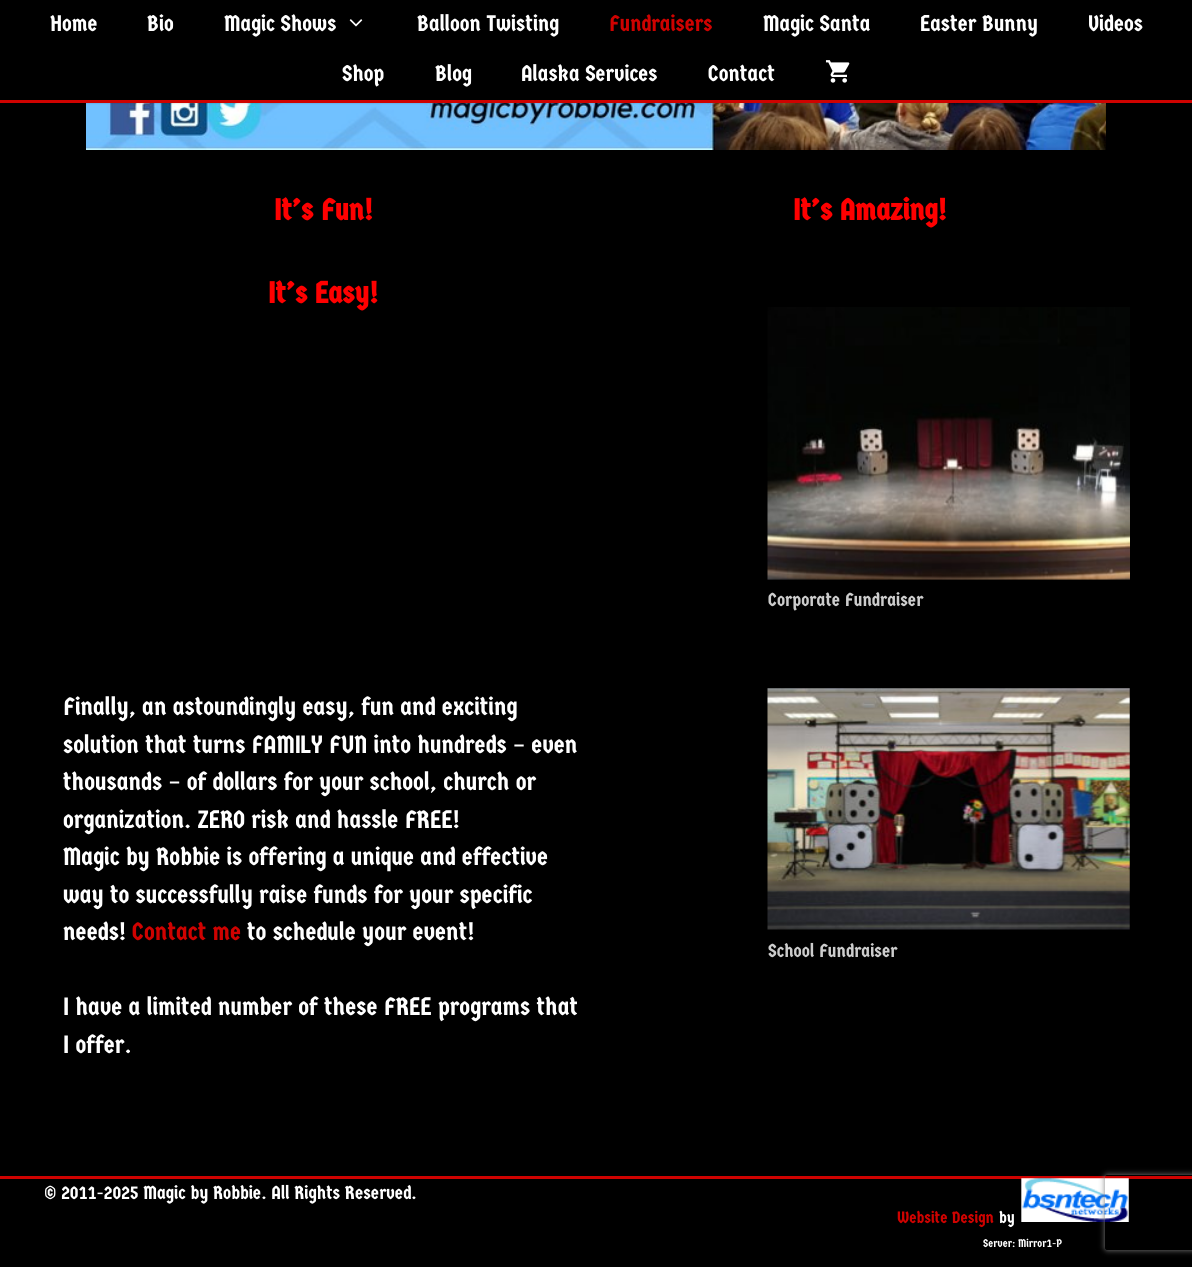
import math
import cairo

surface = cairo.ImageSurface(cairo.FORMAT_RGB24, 1192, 1267)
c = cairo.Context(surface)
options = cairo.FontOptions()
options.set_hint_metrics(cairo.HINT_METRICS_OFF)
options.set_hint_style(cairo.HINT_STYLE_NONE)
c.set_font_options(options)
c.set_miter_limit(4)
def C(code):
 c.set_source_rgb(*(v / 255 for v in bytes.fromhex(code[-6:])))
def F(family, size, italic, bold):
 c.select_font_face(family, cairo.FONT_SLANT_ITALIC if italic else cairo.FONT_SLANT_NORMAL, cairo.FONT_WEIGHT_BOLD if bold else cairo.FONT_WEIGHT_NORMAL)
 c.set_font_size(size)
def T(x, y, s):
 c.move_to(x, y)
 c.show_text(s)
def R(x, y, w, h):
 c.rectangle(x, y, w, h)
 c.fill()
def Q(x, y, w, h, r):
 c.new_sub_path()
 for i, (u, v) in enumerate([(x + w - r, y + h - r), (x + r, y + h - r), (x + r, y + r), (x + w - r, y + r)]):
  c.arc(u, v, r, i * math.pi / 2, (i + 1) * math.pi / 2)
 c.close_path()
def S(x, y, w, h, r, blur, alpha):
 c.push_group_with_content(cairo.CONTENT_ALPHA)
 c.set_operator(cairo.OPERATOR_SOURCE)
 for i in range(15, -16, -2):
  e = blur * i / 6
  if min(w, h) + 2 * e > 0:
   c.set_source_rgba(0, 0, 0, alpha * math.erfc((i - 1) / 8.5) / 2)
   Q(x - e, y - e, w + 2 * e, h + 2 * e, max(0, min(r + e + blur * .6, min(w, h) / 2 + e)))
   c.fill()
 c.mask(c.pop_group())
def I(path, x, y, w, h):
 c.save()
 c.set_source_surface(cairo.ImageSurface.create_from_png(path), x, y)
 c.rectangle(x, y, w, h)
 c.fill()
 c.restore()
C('000000')
c.paint()
I('3.png',86,103,1020,47)
S(3,5,1187,98,0,1,.2)
C('cf0200')
R(0,100,1192,3)
F('Germania One',22.5,0,0)
C('ffffff')
T(50,31,'Home')
T(147,31,'Bio')
T(224,31,'Magic Shows')
I('1.png',349,19,14,8)
T(417,31,'Balloon Twisting')
C('cf0200')
T(609,31,'Fundraisers')
C('ffffff')
T(763,31,'Magic Santa')
T(920,31,'Easter Bunny')
T(1088,31,'Videos')
T(342,81,'Shop')
T(435,81,'Blog')
T(521,81,'Alaska Services')
T(708,81,'Contact')
I('2.png',825,60,25,23)
F('Germania One',30,0,1)
C('ff0000')
T(274,220,'It’s Fun!')
T(793,220,'It’s Amazing!')
T(268,303,'It’s Easy!')
I('4.png',767,307,363,273)
F('Germania One',18.75,0,0)
C('cccccc')
T(768,606,'Corporate Fundraiser')
F('Germania One',25,0,0)
C('ffffff')
T(63,715,'Finally, an astoundingly easy, fun and exciting')
T(63,753,'solution that turns FAMILY FUN into hundreds – even')
T(63,790,'thousands – of dollars for your school, church or')
T(63,828,'organization. ZERO risk and hassle FREE!')
T(63,865,'Magic by Robbie is offering a unique and effective')
T(63,903,'way to successfully raise funds for your specific')
T(63,940,'needs!')
C('cf0200')
T(132,940,'Contact me')
C('ffffff')
T(247,940,'to schedule your event!')
T(63,1015,'I have a limited number of these FREE programs that')
T(63,1053,'I offer.')
I('5.png',767,688,363,242)
F('Germania One',18.75,0,0)
C('cccccc')
T(768,957,'School Fundraiser')
C('cf0200')
R(0,1176,1192,3)
C('ffffff')
T(44,1199,'© 2011-2025 Magic by Robbie. All Rights Reserved.')
F('Germania One',16.5,0,0)
C('cf0200')
T(897,1223,'Website Design')
C('ffffff')
T(999,1223,'by')
I('6.png',1021,1178,108,44)
F('Germania One',11.25,0,0)
T(983,1247,'Server: Mirror1-P')
c.save()
c.set_fill_rule(cairo.FILL_RULE_EVEN_ODD)
c.new_path()
c.move_to(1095,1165)
c.line_to(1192,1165)
c.line_to(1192,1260)
c.line_to(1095,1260)
c.close_path()
c.move_to(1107.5,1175)
c.line_to(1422.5,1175)
c.curve_to(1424,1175,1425,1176,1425,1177.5)
c.line_to(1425,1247.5)
c.curve_to(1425,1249,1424,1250,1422.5,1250)
c.line_to(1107.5,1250)
c.curve_to(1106,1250,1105,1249,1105,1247.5)
c.line_to(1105,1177.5)
c.curve_to(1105,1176,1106,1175,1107.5,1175)
c.close_path()
c.clip()
C('808080')
S(1105,1175,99,75,2.5,3,1)
c.restore()
surface.write_to_png('o.png')
